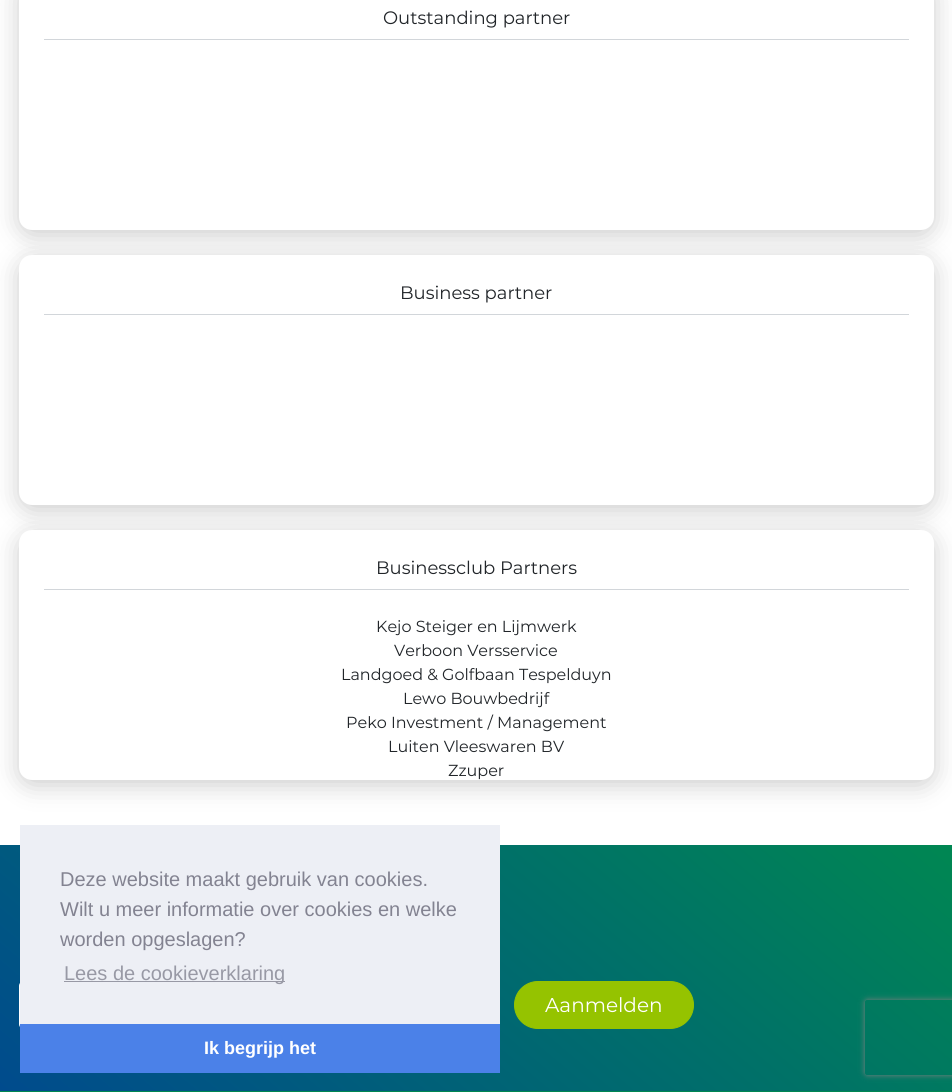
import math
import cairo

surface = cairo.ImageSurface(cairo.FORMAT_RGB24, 952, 1092)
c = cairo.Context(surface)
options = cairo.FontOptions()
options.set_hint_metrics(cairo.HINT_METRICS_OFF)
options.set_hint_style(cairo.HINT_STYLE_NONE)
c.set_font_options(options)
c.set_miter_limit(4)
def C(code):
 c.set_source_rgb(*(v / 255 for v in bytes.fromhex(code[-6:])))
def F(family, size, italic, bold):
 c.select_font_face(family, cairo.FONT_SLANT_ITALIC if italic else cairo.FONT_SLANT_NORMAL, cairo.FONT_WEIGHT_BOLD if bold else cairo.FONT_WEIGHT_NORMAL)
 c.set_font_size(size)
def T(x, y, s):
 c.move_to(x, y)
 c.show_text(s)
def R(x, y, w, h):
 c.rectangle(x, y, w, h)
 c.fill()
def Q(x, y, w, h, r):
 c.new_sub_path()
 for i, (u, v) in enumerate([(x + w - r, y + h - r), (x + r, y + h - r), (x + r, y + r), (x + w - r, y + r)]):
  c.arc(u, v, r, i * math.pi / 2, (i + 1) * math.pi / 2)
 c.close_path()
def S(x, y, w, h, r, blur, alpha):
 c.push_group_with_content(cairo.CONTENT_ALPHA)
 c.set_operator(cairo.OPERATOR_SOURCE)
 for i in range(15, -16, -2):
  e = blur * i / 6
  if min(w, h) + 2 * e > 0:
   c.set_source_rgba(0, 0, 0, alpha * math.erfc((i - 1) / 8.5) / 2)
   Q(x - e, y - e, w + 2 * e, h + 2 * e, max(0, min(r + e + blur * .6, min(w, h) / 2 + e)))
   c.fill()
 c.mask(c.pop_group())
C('ffffff')
c.paint()
gradient = cairo.LinearGradient(734,661,219,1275)
gradient.add_color_stop_rgba(0,0,0.529,0.322,1)
gradient.add_color_stop_rgba(1,0,0.294,0.553,1)
c.set_source(gradient)
R(0,845,952,246)
C('ffffff')
Q(19,981,457,48,5)
c.fill()
C('edeff5')
R(20,825,480,199)
F('Liberation Sans',20,0,0)
C('838391')
T(60,886,'Deze website maakt gebruik van cookies.')
T(60,916,'Wilt u meer informatie over cookies en welke')
T(60,946,'worden opgeslagen?')
C('9899a5')
R(64,981,221,1)
T(64,980,'Lees de cookieverklaring')
C('4b81e8')
R(20,1024,480,49)
F('Liberation Sans',18,0,1)
C('ffffff')
T(204,1054,'Ik begrijp het')
C('000000')
S(19,-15,915,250,13,12.5,.2)
C('ffffff')
Q(19,-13,915,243,13)
c.fill()
C('d2d6da')
R(44,39,865,1)
F('Montserrat',18,0,0)
C('212529')
T(383,24,'Outstanding partner')
C('000000')
S(19,260,915,250,13,12.5,.2)
C('ffffff')
Q(19,255,915,250,13)
c.fill()
C('d2d6da')
R(44,314,865,1)
C('212529')
T(400,299,'Business partner')
C('000000')
S(19,535,915,250,13,12.5,.2)
C('ffffff')
Q(19,530,915,250,13)
c.fill()
C('d2d6da')
R(44,589,865,1)
C('212529')
T(376,574,'Businessclub Partners')
F('Montserrat',16,0,0)
T(376,632,'Kejo Steiger en Lijmwerk')
T(394,656,'Verboon Versservice')
T(341,680,'Landgoed & Golfbaan Tespelduyn')
T(403,704,'Lewo Bouwbedrijf')
T(346,728,'Peko Investment / Management')
T(388,752,'Luiten Vleeswaren BV')
T(448,776,'Zzuper')
C('008752')
R(0,1091,952,1)
C('95c300')
Q(514.5,981.5,179,47,23.5)
c.fill_preserve()
c.set_line_width(1)
c.stroke()
F('Montserrat',20,0,0)
C('ffffff')
T(545,1012,'Aanmelden')
c.save()
c.set_fill_rule(cairo.FILL_RULE_EVEN_ODD)
c.new_path()
c.move_to(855,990)
c.line_to(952,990)
c.line_to(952,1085)
c.line_to(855,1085)
c.close_path()
c.move_to(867.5,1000)
c.line_to(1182.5,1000)
c.curve_to(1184,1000,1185,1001,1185,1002.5)
c.line_to(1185,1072.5)
c.curve_to(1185,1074,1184,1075,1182.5,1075)
c.line_to(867.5,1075)
c.curve_to(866,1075,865,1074,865,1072.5)
c.line_to(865,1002.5)
c.curve_to(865,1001,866,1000,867.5,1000)
c.close_path()
c.clip()
C('808080')
S(865,1000,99,75,2.5,3,1)
c.restore()
surface.write_to_png('o.png')
